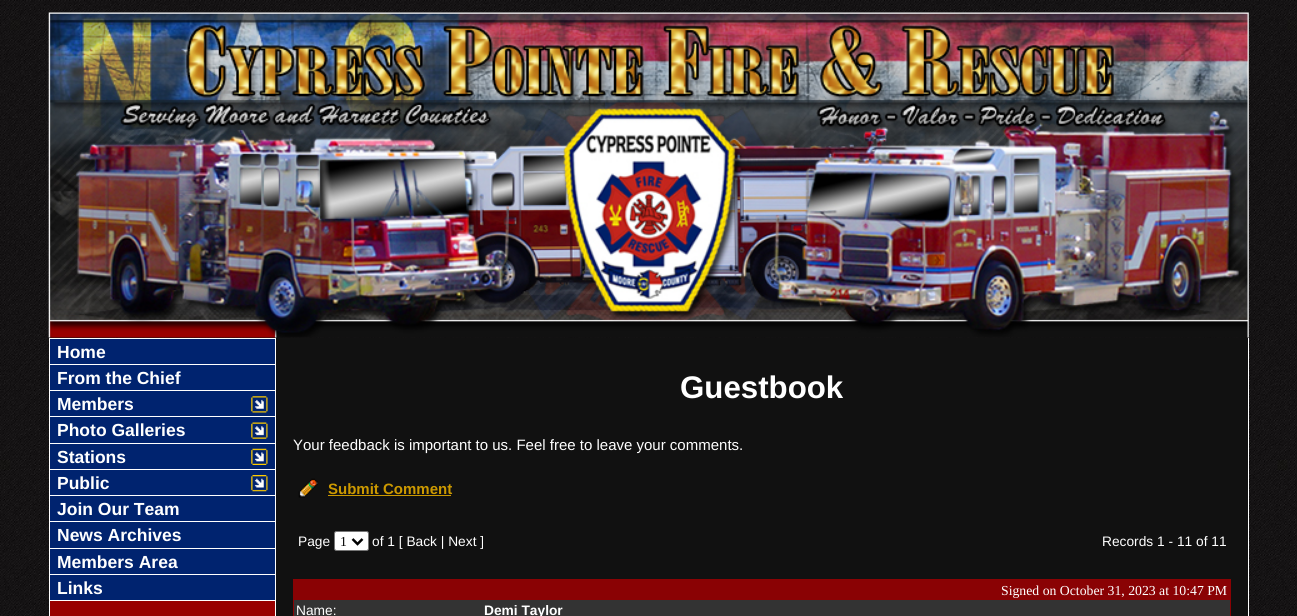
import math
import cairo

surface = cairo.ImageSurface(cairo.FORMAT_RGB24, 1297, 616)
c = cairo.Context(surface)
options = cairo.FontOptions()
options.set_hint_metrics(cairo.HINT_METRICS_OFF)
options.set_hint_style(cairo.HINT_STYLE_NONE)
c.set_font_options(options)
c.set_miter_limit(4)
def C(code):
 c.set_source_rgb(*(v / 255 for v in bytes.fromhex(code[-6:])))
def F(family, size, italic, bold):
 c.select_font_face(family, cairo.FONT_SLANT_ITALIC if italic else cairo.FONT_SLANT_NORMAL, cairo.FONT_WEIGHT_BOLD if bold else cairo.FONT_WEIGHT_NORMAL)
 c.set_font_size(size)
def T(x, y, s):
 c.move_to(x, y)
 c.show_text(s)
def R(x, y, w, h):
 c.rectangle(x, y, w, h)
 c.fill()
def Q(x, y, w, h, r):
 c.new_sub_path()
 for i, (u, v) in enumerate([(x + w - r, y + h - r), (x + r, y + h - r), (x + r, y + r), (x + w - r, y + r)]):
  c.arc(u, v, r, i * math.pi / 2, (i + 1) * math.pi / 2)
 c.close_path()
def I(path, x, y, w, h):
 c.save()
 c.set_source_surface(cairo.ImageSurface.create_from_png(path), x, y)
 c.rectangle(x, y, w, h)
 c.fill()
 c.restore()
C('ffffff')
c.paint()
I('1.png',0,0,1297,616)
I('2.png',48,12,1201,326)
C('ffffff')
R(49,338,1,278)
C('990000')
R(50,601,225,15)
C('ffffff')
R(50,338,225,1)
C('00236f')
R(50,339,225,261)
F('Liberation Sans',17.5,0,1)
C('ffffff')
T(57,358,'Home')
R(50,364,225,1)
T(57,384,'From the Chief')
R(50,390,225,1)
T(57,410,'Members')
I('3.png',251,396,17,17)
R(50,416,225,1)
T(57,436,'Photo Galleries')
I('4.png',251,422,17,17)
R(50,443,225,1)
T(57,463,'Stations')
I('5.png',251,448,17,17)
R(50,469,225,1)
T(57,489,'Public')
I('6.png',251,475,17,17)
R(50,495,225,1)
T(57,515,'Join Our Team')
R(50,521,225,1)
T(57,541,'News Archives')
R(50,548,225,1)
T(57,568,'Members Area')
R(50,574,225,1)
T(57,594,'Links')
R(50,600,225,1)
R(275,338,1,278)
C('111111')
R(276,338,972,278)
F('Liberation Sans',31.25,0,1)
C('ffffff')
T(680,398,'Guestbook')
F('Liberation Sans',15,0,0)
T(293,450,'Your feedback is important to us. Feel free to leave your comments.')
I('7.png',298,478,20,20)
F('Liberation Sans',15,0,1)
C('cc9900')
T(328,494,'Submit Comment')
R(328,495,123,1)
F('Liberation Sans',13.75,0,0)
C('ffffff')
T(298,546,'Page')
Q(334.5,531.5,34,19,2)
c.fill_preserve()
C('767676')
c.set_line_width(1)
c.stroke()
c.new_path()
c.move_to(352.5,539)
c.line_to(357.5,544)
c.line_to(362.5,539)
C('000000')
c.set_line_width(2.5)
c.stroke()
F('Liberation Serif',13.75,0,0)
T(340,546,'1')
F('Liberation Sans',13.75,0,0)
C('ffffff')
T(372,546,'of 1 [ Back | Next ]')
T(1102,546,'Records 1 - 11 of 11')
C('8a0204')
R(293,579,938,37)
C('333333')
R(294,600,936,16)
F('Liberation Serif',13.75,0,0)
C('ffffff')
T(1001,595,'Signed on October 31, 2023 at 10:47 PM')
F('Liberation Sans',13.75,0,0)
T(296,615,'Name:')
F('Liberation Sans',13.75,0,1)
T(484,615,'Demi Taylor')
R(1248,338,1,278)
surface.write_to_png('o.png')
